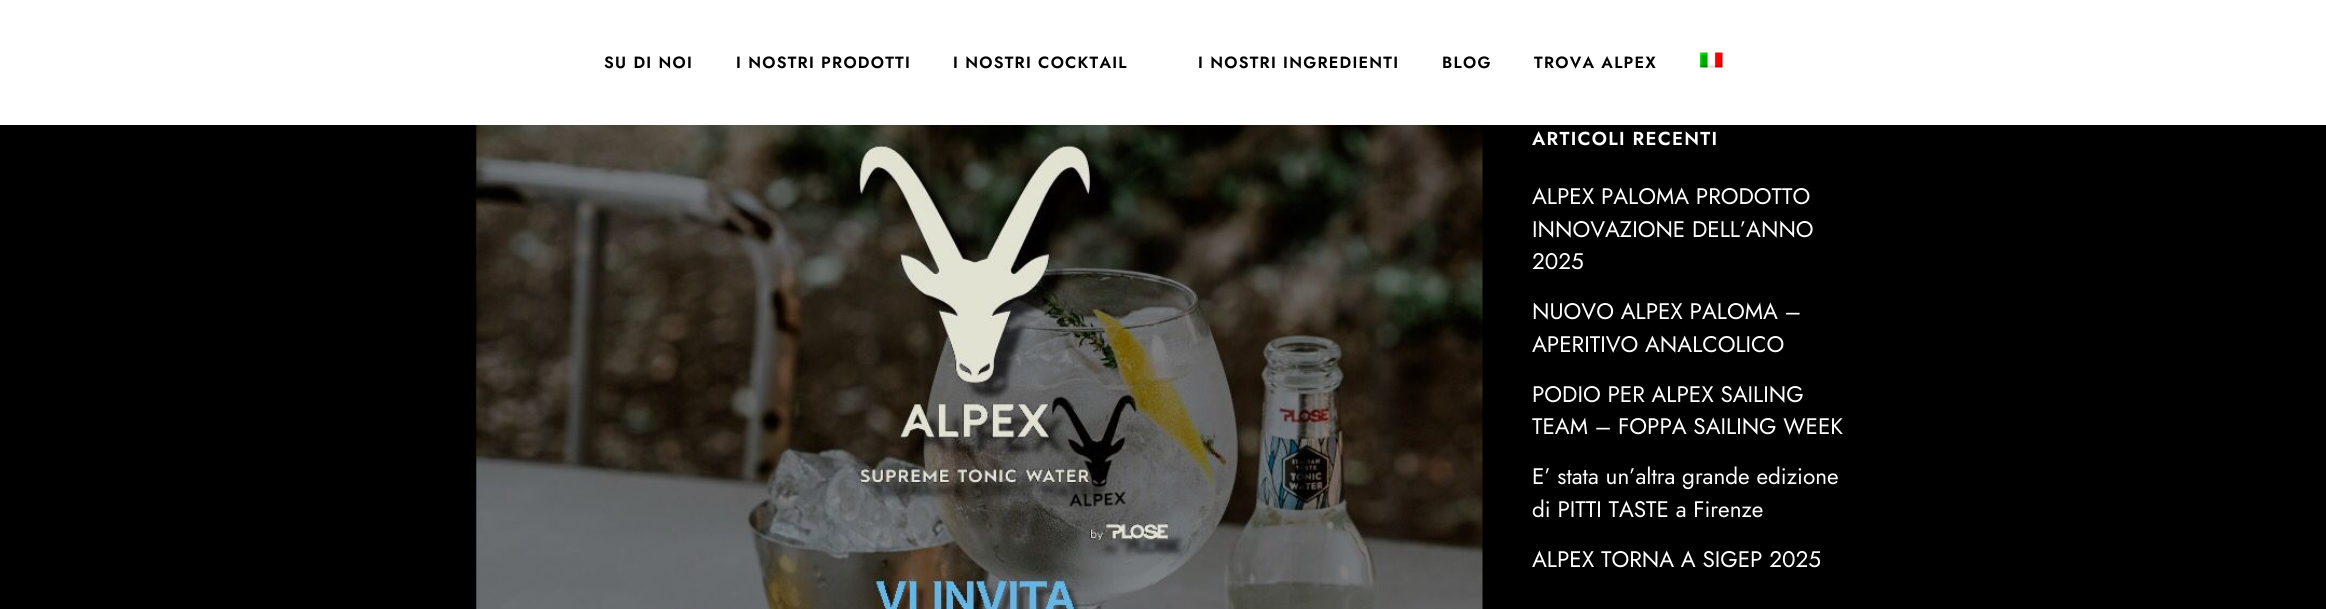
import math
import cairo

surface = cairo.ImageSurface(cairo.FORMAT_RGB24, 2326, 609)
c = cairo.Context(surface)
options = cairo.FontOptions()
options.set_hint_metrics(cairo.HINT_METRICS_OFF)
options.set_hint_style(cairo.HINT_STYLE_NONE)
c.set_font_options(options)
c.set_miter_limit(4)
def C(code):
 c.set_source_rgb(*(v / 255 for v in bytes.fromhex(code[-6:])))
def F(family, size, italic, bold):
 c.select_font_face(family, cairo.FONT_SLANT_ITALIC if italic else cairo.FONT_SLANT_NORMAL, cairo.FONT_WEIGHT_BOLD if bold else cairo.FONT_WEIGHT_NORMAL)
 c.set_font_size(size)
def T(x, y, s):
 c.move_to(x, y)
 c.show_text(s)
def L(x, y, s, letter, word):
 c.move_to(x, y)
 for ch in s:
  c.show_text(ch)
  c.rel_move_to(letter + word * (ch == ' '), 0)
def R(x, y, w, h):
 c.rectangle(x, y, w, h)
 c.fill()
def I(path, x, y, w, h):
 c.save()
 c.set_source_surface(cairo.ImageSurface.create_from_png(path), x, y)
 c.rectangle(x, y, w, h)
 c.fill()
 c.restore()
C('000000')
c.paint()
C('ffffff')
R(0,0,2326,125)
F('Jost SemiBold',16.25,0,0)
C('000000')
L(604,68,'SU DI NOI',1.25,0)
L(736,68,'I NOSTRI PRODOTTI',1.25,0)
L(953,68,'I NOSTRI COCKTAIL',1.25,0)
L(1198,68,'I NOSTRI INGREDIENTI',1.25,0)
L(1442,68,'BLOG',1.25,0)
L(1534,68,'TROVA ALPEX',1.25,0)
I('1.png',1699,52,24,16)
I('2.png',476,125,1007,484)
F('Jost SemiBold',18.75,0,0)
C('ffffff')
L(1532,145,'ARTICOLI RECENTI',1.25,0)
F('Jost',22.5,0,0)
T(1532,204,'ALPEX PALOMA PRODOTTO')
T(1532,237,'INNOVAZIONE DELL’ANNO')
T(1532,269,'2025')
T(1532,319,'NUOVO ALPEX PALOMA –')
T(1532,352,'APERITIVO ANALCOLICO')
T(1532,402,'PODIO PER ALPEX SAILING')
T(1532,434,'TEAM – FOPPA SAILING WEEK')
T(1532,484,'E’ stata un’altra grande edizione')
T(1532,517,'di PITTI TASTE a Firenze')
T(1532,567,'ALPEX TORNA A SIGEP 2025')
surface.write_to_png('o.png')
